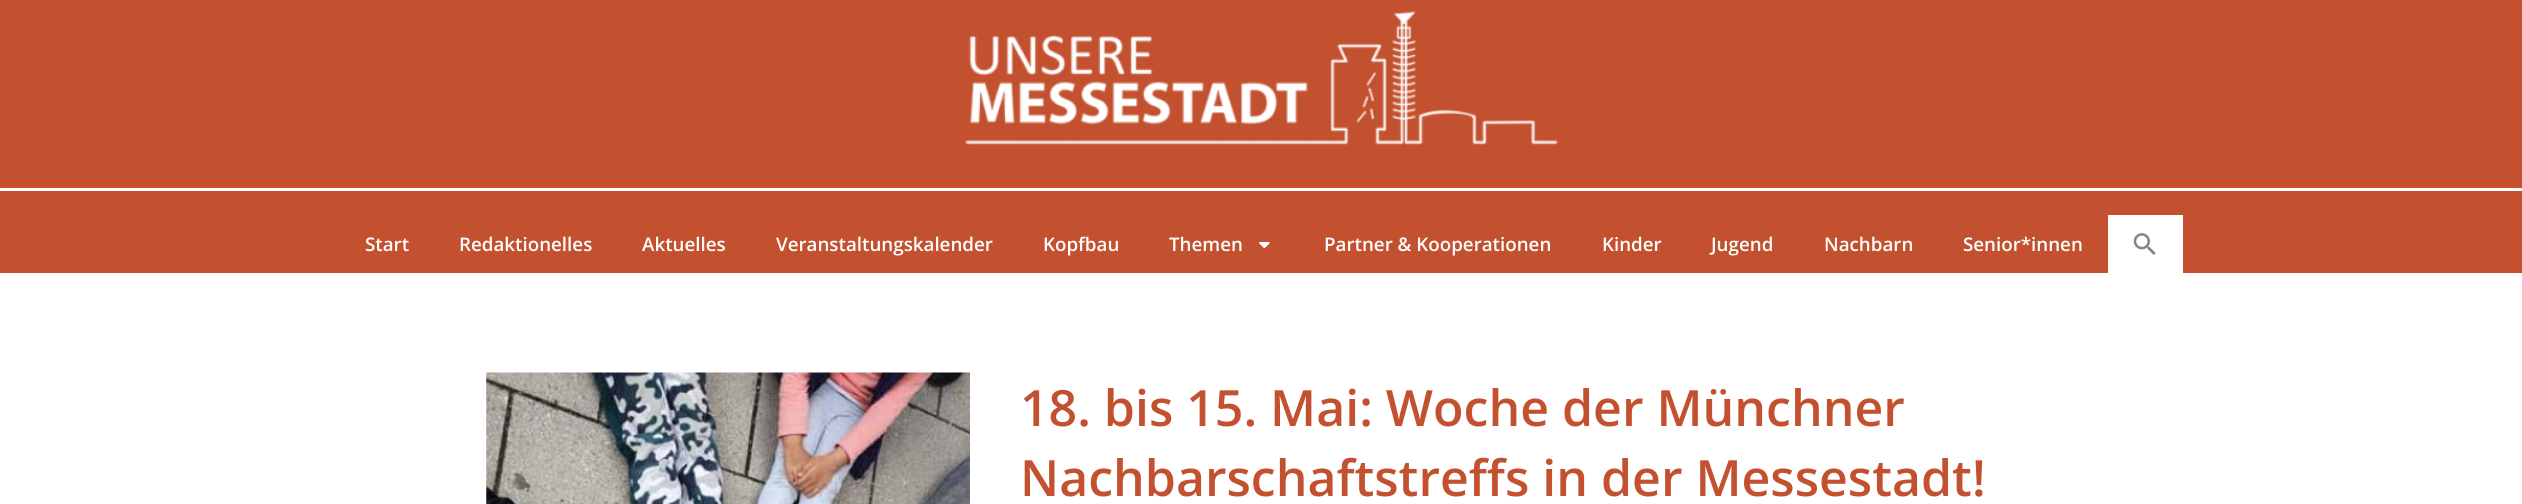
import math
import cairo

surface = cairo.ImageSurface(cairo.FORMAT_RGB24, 2522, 504)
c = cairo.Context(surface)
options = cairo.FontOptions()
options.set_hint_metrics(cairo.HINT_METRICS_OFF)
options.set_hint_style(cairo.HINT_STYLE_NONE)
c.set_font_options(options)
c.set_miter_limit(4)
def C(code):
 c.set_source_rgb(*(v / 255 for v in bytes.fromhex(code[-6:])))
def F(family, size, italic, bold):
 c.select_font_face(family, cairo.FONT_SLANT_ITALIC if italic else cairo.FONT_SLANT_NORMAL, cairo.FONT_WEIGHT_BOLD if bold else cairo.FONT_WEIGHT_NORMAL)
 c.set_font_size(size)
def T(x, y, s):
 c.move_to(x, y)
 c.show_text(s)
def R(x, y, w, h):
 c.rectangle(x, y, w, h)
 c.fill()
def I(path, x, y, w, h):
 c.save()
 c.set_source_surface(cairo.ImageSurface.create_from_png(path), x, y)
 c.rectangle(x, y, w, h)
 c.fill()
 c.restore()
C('ffffff')
c.paint()
C('c3512f')
R(0,0,2522,273)
I('1.png',965,11,593,134)
C('ffffff')
R(0,188,2522,3)
F('Open Sans SemiBold',18.75,0,0)
T(365,251,'Start')
T(459,251,'Redaktionelles')
T(642,251,'Aktuelles')
T(776,251,'Veranstaltungskalender')
T(1043,251,'Kopfbau')
T(1169,251,'Themen')
I('2.png',1259,242,11,7)
T(1324,251,'Partner & Kooperationen')
T(1602,251,'Kinder')
T(1711,251,'Jugend')
T(1824,251,'Nachbarn')
T(1963,251,'Senior*innen')
R(2108,215,75,58)
I('3.png',2133,233,23,22)
I('4.png',486,372,484,132)
F('Open Sans SemiBold',50,0,0)
C('c3512f')
T(1020,426,'18. bis 15. Mai: Woche der Münchner')
T(1020,496,'Nachbarschaftstreffs in der Messestadt!')
surface.write_to_png('o.png')
